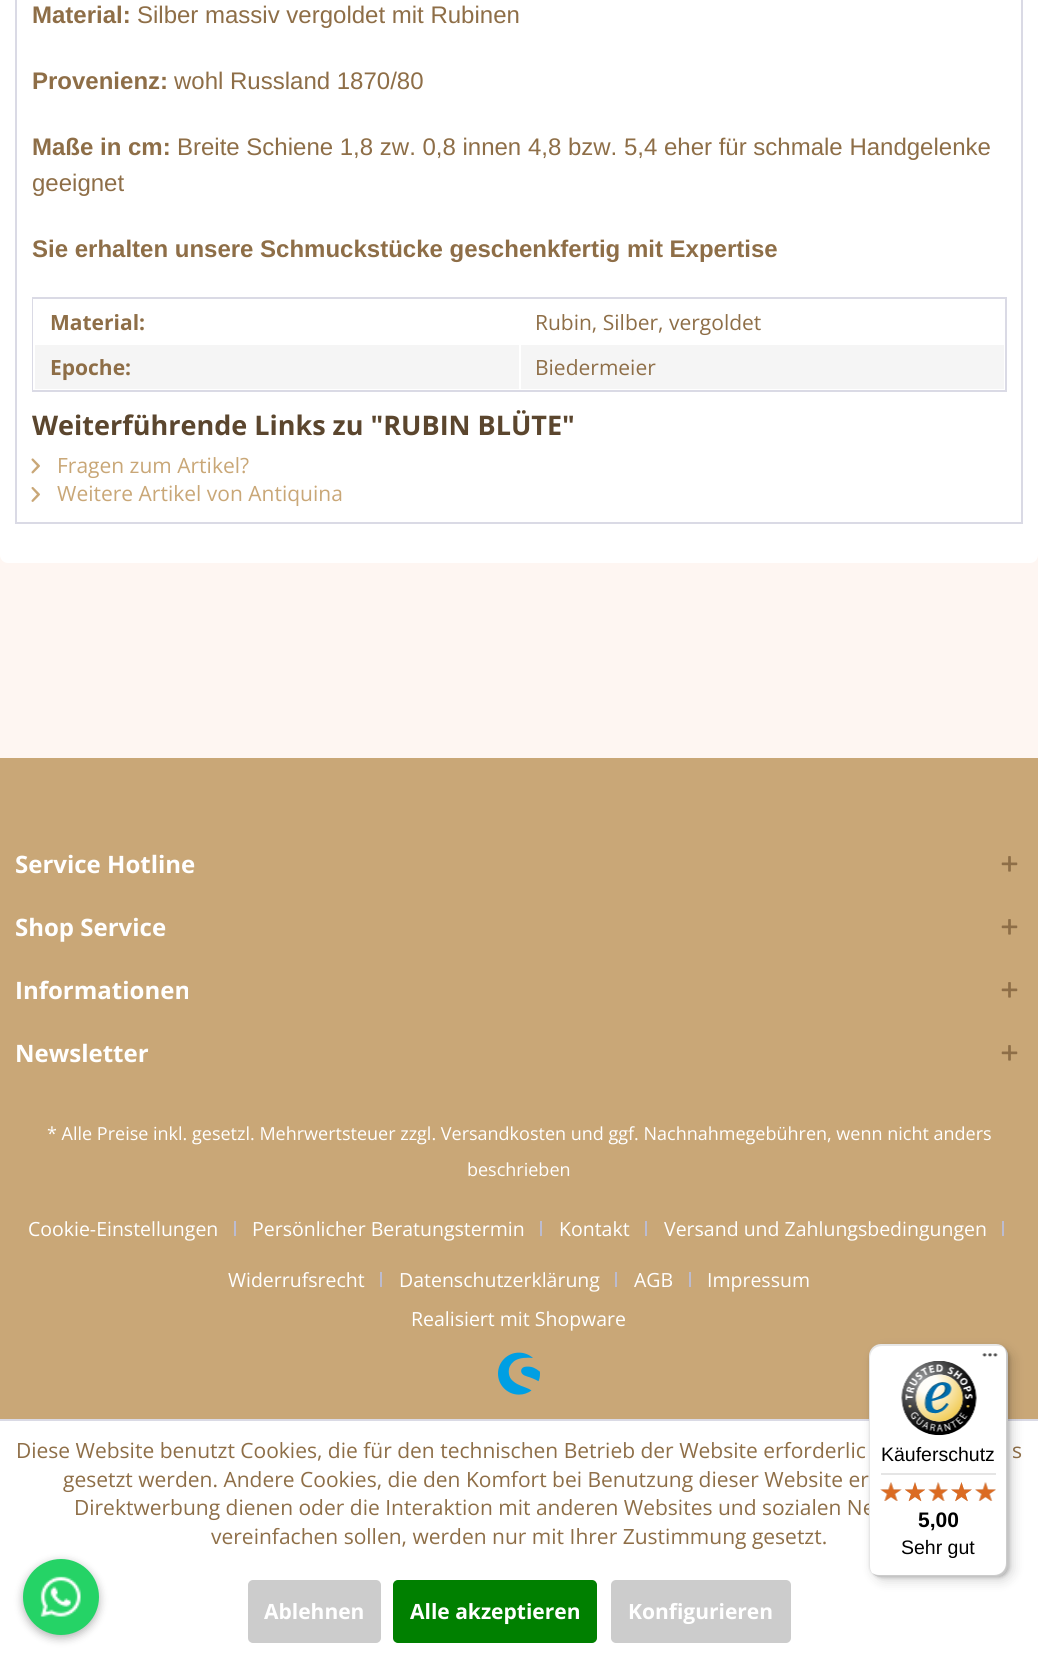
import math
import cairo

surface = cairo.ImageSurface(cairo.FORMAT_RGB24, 1038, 1657)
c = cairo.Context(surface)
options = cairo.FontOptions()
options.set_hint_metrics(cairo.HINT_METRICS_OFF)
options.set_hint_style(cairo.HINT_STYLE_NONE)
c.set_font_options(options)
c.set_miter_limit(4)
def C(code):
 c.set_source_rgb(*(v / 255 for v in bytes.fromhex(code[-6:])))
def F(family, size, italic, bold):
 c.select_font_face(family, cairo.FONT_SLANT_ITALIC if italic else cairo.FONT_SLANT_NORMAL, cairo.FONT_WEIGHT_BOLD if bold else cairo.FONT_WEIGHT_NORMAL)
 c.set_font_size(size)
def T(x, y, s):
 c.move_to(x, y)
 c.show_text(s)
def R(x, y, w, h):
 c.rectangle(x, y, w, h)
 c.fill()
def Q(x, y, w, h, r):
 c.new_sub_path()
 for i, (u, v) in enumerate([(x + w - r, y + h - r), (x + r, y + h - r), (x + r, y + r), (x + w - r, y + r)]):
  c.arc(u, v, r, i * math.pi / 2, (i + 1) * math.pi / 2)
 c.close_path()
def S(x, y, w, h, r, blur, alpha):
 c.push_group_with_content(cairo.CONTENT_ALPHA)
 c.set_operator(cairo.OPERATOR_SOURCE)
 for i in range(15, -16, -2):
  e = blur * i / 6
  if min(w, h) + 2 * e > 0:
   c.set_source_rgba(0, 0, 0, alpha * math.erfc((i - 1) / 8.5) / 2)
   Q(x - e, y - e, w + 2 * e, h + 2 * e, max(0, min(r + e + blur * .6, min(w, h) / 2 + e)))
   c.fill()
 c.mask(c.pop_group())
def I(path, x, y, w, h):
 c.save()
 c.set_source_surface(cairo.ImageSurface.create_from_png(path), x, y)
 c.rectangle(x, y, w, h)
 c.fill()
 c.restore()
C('fef6f2')
c.paint()
C('ffffff')
Q(0,-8,1038,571,8)
c.fill()
c.rectangle(16,-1,1006,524)
C('dadae5')
c.stroke()
F('Liberation Sans',24,0,1)
C('8e6e47')
T(32,23,'Material:')
F('Liberation Sans',24,0,0)
T(137,23,'Silber massiv vergoldet mit Rubinen')
F('Liberation Sans',24,0,1)
T(32,89,'Provenienz:')
F('Liberation Sans',24,0,0)
T(174,89,'wohl Russland 1870/80')
F('Liberation Sans',24,0,1)
T(32,155,'Maße in cm:')
F('Liberation Sans',24,0,0)
T(177,155,'Breite Schiene 1,8 zw. 0,8 innen 4,8 bzw. 5,4 eher für schmale Handgelenke')
T(32,191,'geeignet')
F('Liberation Sans',24,0,1)
T(32,257,'Sie erhalten unsere Schmuckstücke geschenkfertig mit Expertise')
c.rectangle(33,298,973,93)
C('dadae5')
c.stroke()
C('ffffff')
R(33,299,1,91)
F('Open Sans',21,0,1)
C('8e6e47')
T(50,330,'Material:')
F('Open Sans',21,0,0)
T(535,330,'Rubin, Silber, vergoldet')
C('f5f5f5')
R(35,345,484,44)
F('Open Sans',21,0,1)
C('8e6e47')
T(50,375,'Epoche:')
C('f5f5f5')
R(521,345,483,44)
F('Open Sans',21,0,0)
C('8e6e47')
T(535,375,'Biedermeier')
F('Open Sans',27,0,1)
C('5b462e')
T(32,435,'Weiterführende Links zu "RUBIN BLÜTE"')
I('1.png',31,458,9,16)
F('Open Sans',21,0,0)
C('c9a777')
T(57,473,'Fragen zum Artikel?')
I('2.png',31,487,9,15)
T(57,501,'Weitere Artikel von Antiquina')
R(0,758,1038,661)
F('Open Sans',24,0,1)
C('ffffff')
T(15,873,'Service Hotline')
I('3.png',1001,856,17,16)
T(15,936,'Shop Service')
I('3.png',1001,919,17,16)
T(15,999,'Informationen')
I('3.png',1001,982,17,16)
T(15,1062,'Newsletter')
I('3.png',1001,1045,17,16)
F('Open Sans',18,0,0)
T(47,1140,'* Alle Preise inkl. gesetzl. Mehrwertsteuer zzgl. Versandkosten und ggf. Nachnahmegebühren, wenn nicht anders')
T(467,1176,'beschrieben')
F('Open Sans',19.5,0,0)
T(28,1236,'Cookie-Einstellungen')
C('bcbcd0')
R(234,1221,2,15)
C('ffffff')
T(252,1236,'Persönlicher Beratungstermin')
C('bcbcd0')
R(540,1221,2,15)
C('ffffff')
T(559,1236,'Kontakt')
C('bcbcd0')
R(645,1221,2,15)
C('ffffff')
T(664,1236,'Versand und Zahlungsbedingungen')
C('bcbcd0')
R(1002,1221,2,15)
C('ffffff')
T(228,1287,'Widerrufsrecht')
C('bcbcd0')
R(380,1272,2,15)
C('ffffff')
T(399,1287,'Datenschutzerklärung')
C('bcbcd0')
R(615,1272,2,15)
C('ffffff')
T(634,1287,'AGB')
C('bcbcd0')
R(689,1272,2,15)
C('ffffff')
T(707,1287,'Impressum')
T(411,1326,'Realisiert mit Shopware')
I('4.png',498,1352,42,43)
R(0,1421,1038,236)
C('000000')
S(23,1562,76,76,38,4.5,.3)
C('25d366')
c.arc(61,1597,38,0,2 * math.pi)
c.fill()
I('5.png',40,1576,41,41)
C('dadae5')
R(0,1419,1038,2)
F('Open Sans',21,0,0)
C('8e6e47')
T(16,1458,'Diese Website benutzt Cookies, die für den technischen Betrieb der Website erforderlic')
T(1012,1458,'s')
T(63,1487,'gesetzt werden. Andere Cookies, die den Komfort bei Benutzung dieser Website er')
T(74,1515,'Direktwerbung dienen oder die Interaktion mit anderen Websites und sozialen Ne')
T(211,1544,'vereinfachen sollen, werden nur mit Ihrer Zustimmung gesetzt.')
C('cccccc')
Q(249,1581,131,61,4)
c.fill_preserve()
c.stroke()
F('Open Sans',21,0,1)
C('ffffff')
T(264,1619,'Ablehnen')
C('008000')
Q(394,1581,202,61,4)
c.fill_preserve()
c.stroke()
C('ffffff')
T(410,1619,'Alle akzeptieren')
C('cccccc')
Q(611,1580,180,63,5)
c.fill()
C('ffffff')
T(628,1619,'Konfigurieren')
C('000000')
S(873,1349,140,232,12,6,.15)
S(870,1346,140,232,12,1.5,.15)
C('ffffff')
Q(869,1344,139,233,12)
c.fill()
c.set_source_rgba(0,0,0,0.1)
c.new_path()
c.move_to(882,1346)
c.line_to(998,1346)
c.curve_to(1001,1346,1003,1347,1006,1349)
c.curve_to(1003,1346,1000,1344,996,1344)
c.line_to(881,1344)
c.curve_to(874,1344,869,1349,869,1356)
c.line_to(869,1565)
c.curve_to(869,1568,870,1571,872,1573)
c.curve_to(871,1571,870,1569,870,1566)
c.line_to(870,1358)
c.curve_to(870,1351,875,1346,882,1346)
c.close_path()
c.fill()
c.set_source_rgba(0,0,0,0.2)
c.new_path()
c.move_to(872,1573)
c.curve_to(874,1575,877,1577,881,1577)
c.line_to(996,1577)
c.curve_to(1003,1577,1008,1572,1008,1565)
c.line_to(1008,1356)
c.curve_to(1008,1352,1006,1349,1003,1346)
c.curve_to(1005,1349,1006,1351,1006,1354)
c.line_to(1006,1563)
c.curve_to(1006,1570,1001,1575,994,1575)
c.line_to(879,1575)
c.curve_to(876,1575,874,1574,872,1573)
c.close_path()
c.fill()
c.set_source_rgba(0.196,0.196,0.196,0.2)
c.new_path()
c.move_to(872,1573)
c.curve_to(874,1575,877,1577,881,1577)
c.line_to(996,1577)
c.curve_to(1003,1577,1008,1572,1008,1565)
c.line_to(1008,1356)
c.curve_to(1008,1353,1007,1350,1005,1348)
c.curve_to(1006,1350,1007,1352,1007,1355)
c.line_to(1007,1564)
c.curve_to(1007,1570,1002,1576,995,1576)
c.line_to(880,1576)
c.curve_to(877,1576,874,1575,872,1573)
c.close_path()
c.fill()
c.set_source_rgba(1,1,1,0.3)
c.new_path()
c.move_to(872,1573)
c.curve_to(874,1575,877,1577,881,1577)
c.line_to(996,1577)
c.curve_to(1003,1577,1008,1572,1008,1565)
c.line_to(1008,1356)
c.curve_to(1008,1352,1006,1349,1004,1347)
c.curve_to(1006,1349,1007,1352,1007,1355)
c.line_to(1007,1564)
c.curve_to(1007,1570,1002,1576,995,1576)
c.line_to(880,1576)
c.curve_to(877,1576,874,1575,872,1573)
c.close_path()
c.fill()
I('6.png',982,1353,16,4)
I('7.png',901,1361,76,75)
F('Liberation Sans',19.5,0,0)
C('000000')
T(881,1461,'Käuferschutz')
C('e5e5e5')
R(881,1473,115,2)
I('8.png',880,1482,22,19)
I('9.png',905,1482,20,19)
I('10.png',928,1482,20,19)
I('11.png',951,1482,21,19)
I('12.png',975,1482,21,19)
I('13.png',880,1482,22,19)
I('14.png',905,1482,20,20)
I('15.png',928,1482,20,19)
I('16.png',951,1482,21,20)
I('17.png',975,1482,21,19)
F('Liberation Sans',21,0,1)
C('000000')
T(918,1527,'5,00')
F('Liberation Sans',19.5,0,0)
T(901,1554,'Sehr gut')
surface.write_to_png('o.png')
